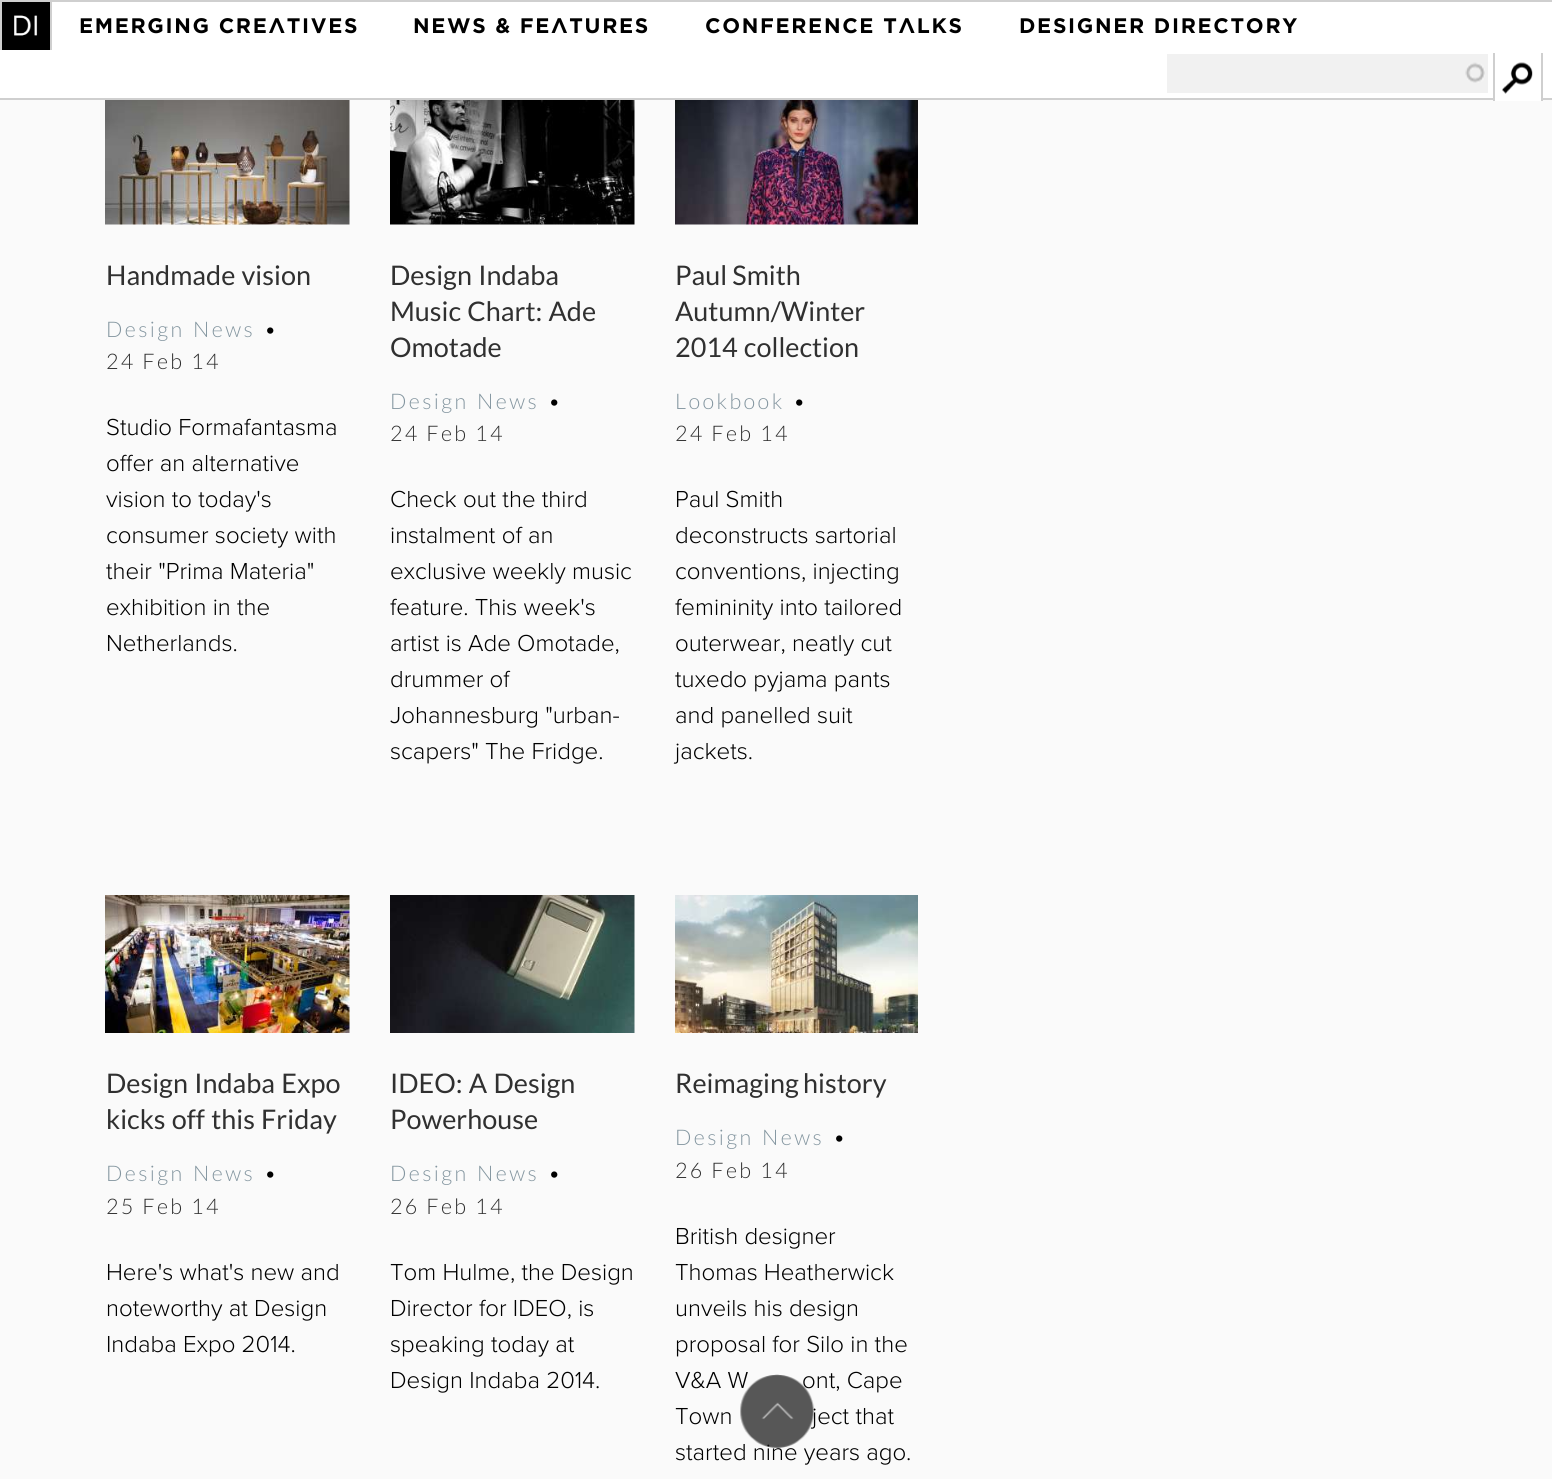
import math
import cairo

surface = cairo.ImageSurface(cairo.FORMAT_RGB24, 1552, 1479)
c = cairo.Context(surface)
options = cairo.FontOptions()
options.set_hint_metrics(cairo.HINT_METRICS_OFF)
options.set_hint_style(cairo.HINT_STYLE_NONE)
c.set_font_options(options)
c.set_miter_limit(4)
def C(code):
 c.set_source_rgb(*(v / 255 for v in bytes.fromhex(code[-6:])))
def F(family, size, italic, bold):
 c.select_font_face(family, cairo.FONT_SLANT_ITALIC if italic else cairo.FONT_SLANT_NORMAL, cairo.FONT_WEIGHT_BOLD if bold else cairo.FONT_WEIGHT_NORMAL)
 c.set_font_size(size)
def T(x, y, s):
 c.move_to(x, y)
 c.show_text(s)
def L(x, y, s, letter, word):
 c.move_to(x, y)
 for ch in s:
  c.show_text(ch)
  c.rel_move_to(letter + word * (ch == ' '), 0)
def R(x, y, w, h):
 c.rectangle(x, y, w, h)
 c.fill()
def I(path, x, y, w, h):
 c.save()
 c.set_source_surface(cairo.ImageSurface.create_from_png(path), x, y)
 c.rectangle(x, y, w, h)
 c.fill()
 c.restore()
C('fafafa')
c.paint()
C('ffffff')
R(0,2,1552,96)
C('cfcfcf')
R(0,0,1552,2)
R(0,98,1552,2)
C('000000')
R(2,2,48,48)
I('1.png',14,15,24,21)
C('cfcfcf')
R(50,2,2,48)
R(0,2,2,48)
F('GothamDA',21,0,1)
C('000000')
L(79,33,'EMERGING CREATIVES',1.7,0)
L(413,33,'NEWS & FEATURES',1.7,0)
L(705,33,'CONFERENCE TALKS',1.7,0)
L(1019,33,'DESIGNER DIRECTORY',1.7,0)
C('f1f1f1')
R(1167,54,321,39)
I('2.png',1465,62,20,21)
C('ffffff')
R(1495,98,46,3)
I('3.png',1502,62,31,32)
C('cfcfcf')
R(1541,53,2,48)
R(1493,53,2,48)
I('4.png',105,100,245,125)
F('Lato',27,0,0)
C('303030')
L(106,285,'Handmade vision',0,1)
F('Lato Light',21.5,0,0)
C('8496a0')
L(106,337,'Design News',2.4,2)
C('000000')
L(264,337,'•',2.4,0)
C('303030')
L(106,369,'24 Feb 14',2.4,0)
F('Proxima Nova Light',24,0,0)
C('000000')
T(106,435,'Studio Formafantasma')
T(106,471,'offer an alternative')
T(106,507,'vision to today\'s')
T(106,543,'consumer society with')
T(106,579,'their "Prima Materia"')
T(106,615,'exhibition in the')
T(106,651,'Netherlands.')
I('5.png',390,100,245,125)
F('Lato',27,0,0)
C('303030')
L(390,285,'Design Indaba',0,1)
L(390,321,'Music Chart: Ade',0,1)
T(390,357,'Omotade')
F('Lato Light',21.5,0,0)
C('8496a0')
L(390,409,'Design News',2.4,2)
C('000000')
L(548,409,'•',2.4,0)
C('303030')
L(390,441,'24 Feb 14',2.4,0)
F('Proxima Nova Light',24,0,0)
C('000000')
T(390,507,'Check out the third')
T(390,543,'instalment of an')
T(390,579,'exclusive weekly music')
T(390,615,'feature. This week\'s')
T(390,651,'artist is Ade Omotade,')
T(390,687,'drummer of')
T(390,723,'Johannesburg "urban-')
T(390,759,'scapers" The Fridge.')
I('6.png',675,100,243,125)
F('Lato',27,0,0)
C('303030')
T(675,285,'Paul Smith')
T(675,321,'Autumn/Winter')
L(675,357,'2014 collection',0,1)
F('Lato Light',21.5,0,0)
C('8496a0')
L(675,409,'Lookbook',2.4,0)
C('000000')
L(793,409,'•',2.4,0)
C('303030')
L(675,441,'24 Feb 14',2.4,0)
F('Proxima Nova Light',24,0,0)
C('000000')
T(675,507,'Paul Smith')
T(675,543,'deconstructs sartorial')
T(675,579,'conventions, injecting')
T(675,615,'femininity into tailored')
T(675,651,'outerwear, neatly cut')
T(675,687,'tuxedo pyjama pants')
T(675,723,'and panelled suit')
T(675,759,'jackets.')
I('7.png',105,895,245,138)
F('Lato',27,0,0)
C('303030')
L(106,1093,'Design Indaba Expo',0,1)
L(106,1129,'kicks off this Friday',0,1)
F('Lato Light',21.5,0,0)
C('8496a0')
L(106,1181,'Design News',2.4,2)
C('000000')
L(264,1181,'•',2.4,0)
C('303030')
L(106,1214,'25 Feb 14',2.4,0)
F('Proxima Nova Light',24,0,0)
C('000000')
T(106,1280,'Here\'s what\'s new and')
T(106,1316,'noteworthy at Design')
T(106,1352,'Indaba Expo 2014.')
I('8.png',390,895,245,138)
F('Lato',27,0,0)
C('303030')
L(390,1093,'IDEO: A Design',0,1)
T(390,1129,'Powerhouse')
F('Lato Light',21.5,0,0)
C('8496a0')
L(390,1181,'Design News',2.4,2)
C('000000')
L(548,1181,'•',2.4,0)
C('303030')
L(390,1214,'26 Feb 14',2.4,0)
F('Proxima Nova Light',24,0,0)
C('000000')
T(390,1280,'Tom Hulme, the Design')
T(390,1316,'Director for IDEO, is')
T(390,1352,'speaking today at')
T(390,1388,'Design Indaba 2014.')
I('9.png',675,895,243,138)
F('Lato',27,0,0)
C('303030')
L(675,1093,'Reimaging history',0,-1)
F('Lato Light',21.5,0,0)
C('8496a0')
L(675,1145,'Design News',2.4,2)
C('000000')
L(833,1145,'•',2.4,0)
C('303030')
L(675,1178,'26 Feb 14',2.4,0)
F('Proxima Nova Light',24,0,0)
C('000000')
T(675,1244,'British designer')
T(675,1280,'Thomas Heatherwick')
T(675,1316,'unveils his design')
T(675,1352,'proposal for Silo in the')
T(675,1388,'V&A W')
T(802,1388,'ont, Cape')
T(675,1424,'Town')
T(812,1424,'ject that')
T(675,1460,'started nine years ago.')
I('10.png',740,1374,75,74)
surface.write_to_png('o.png')
